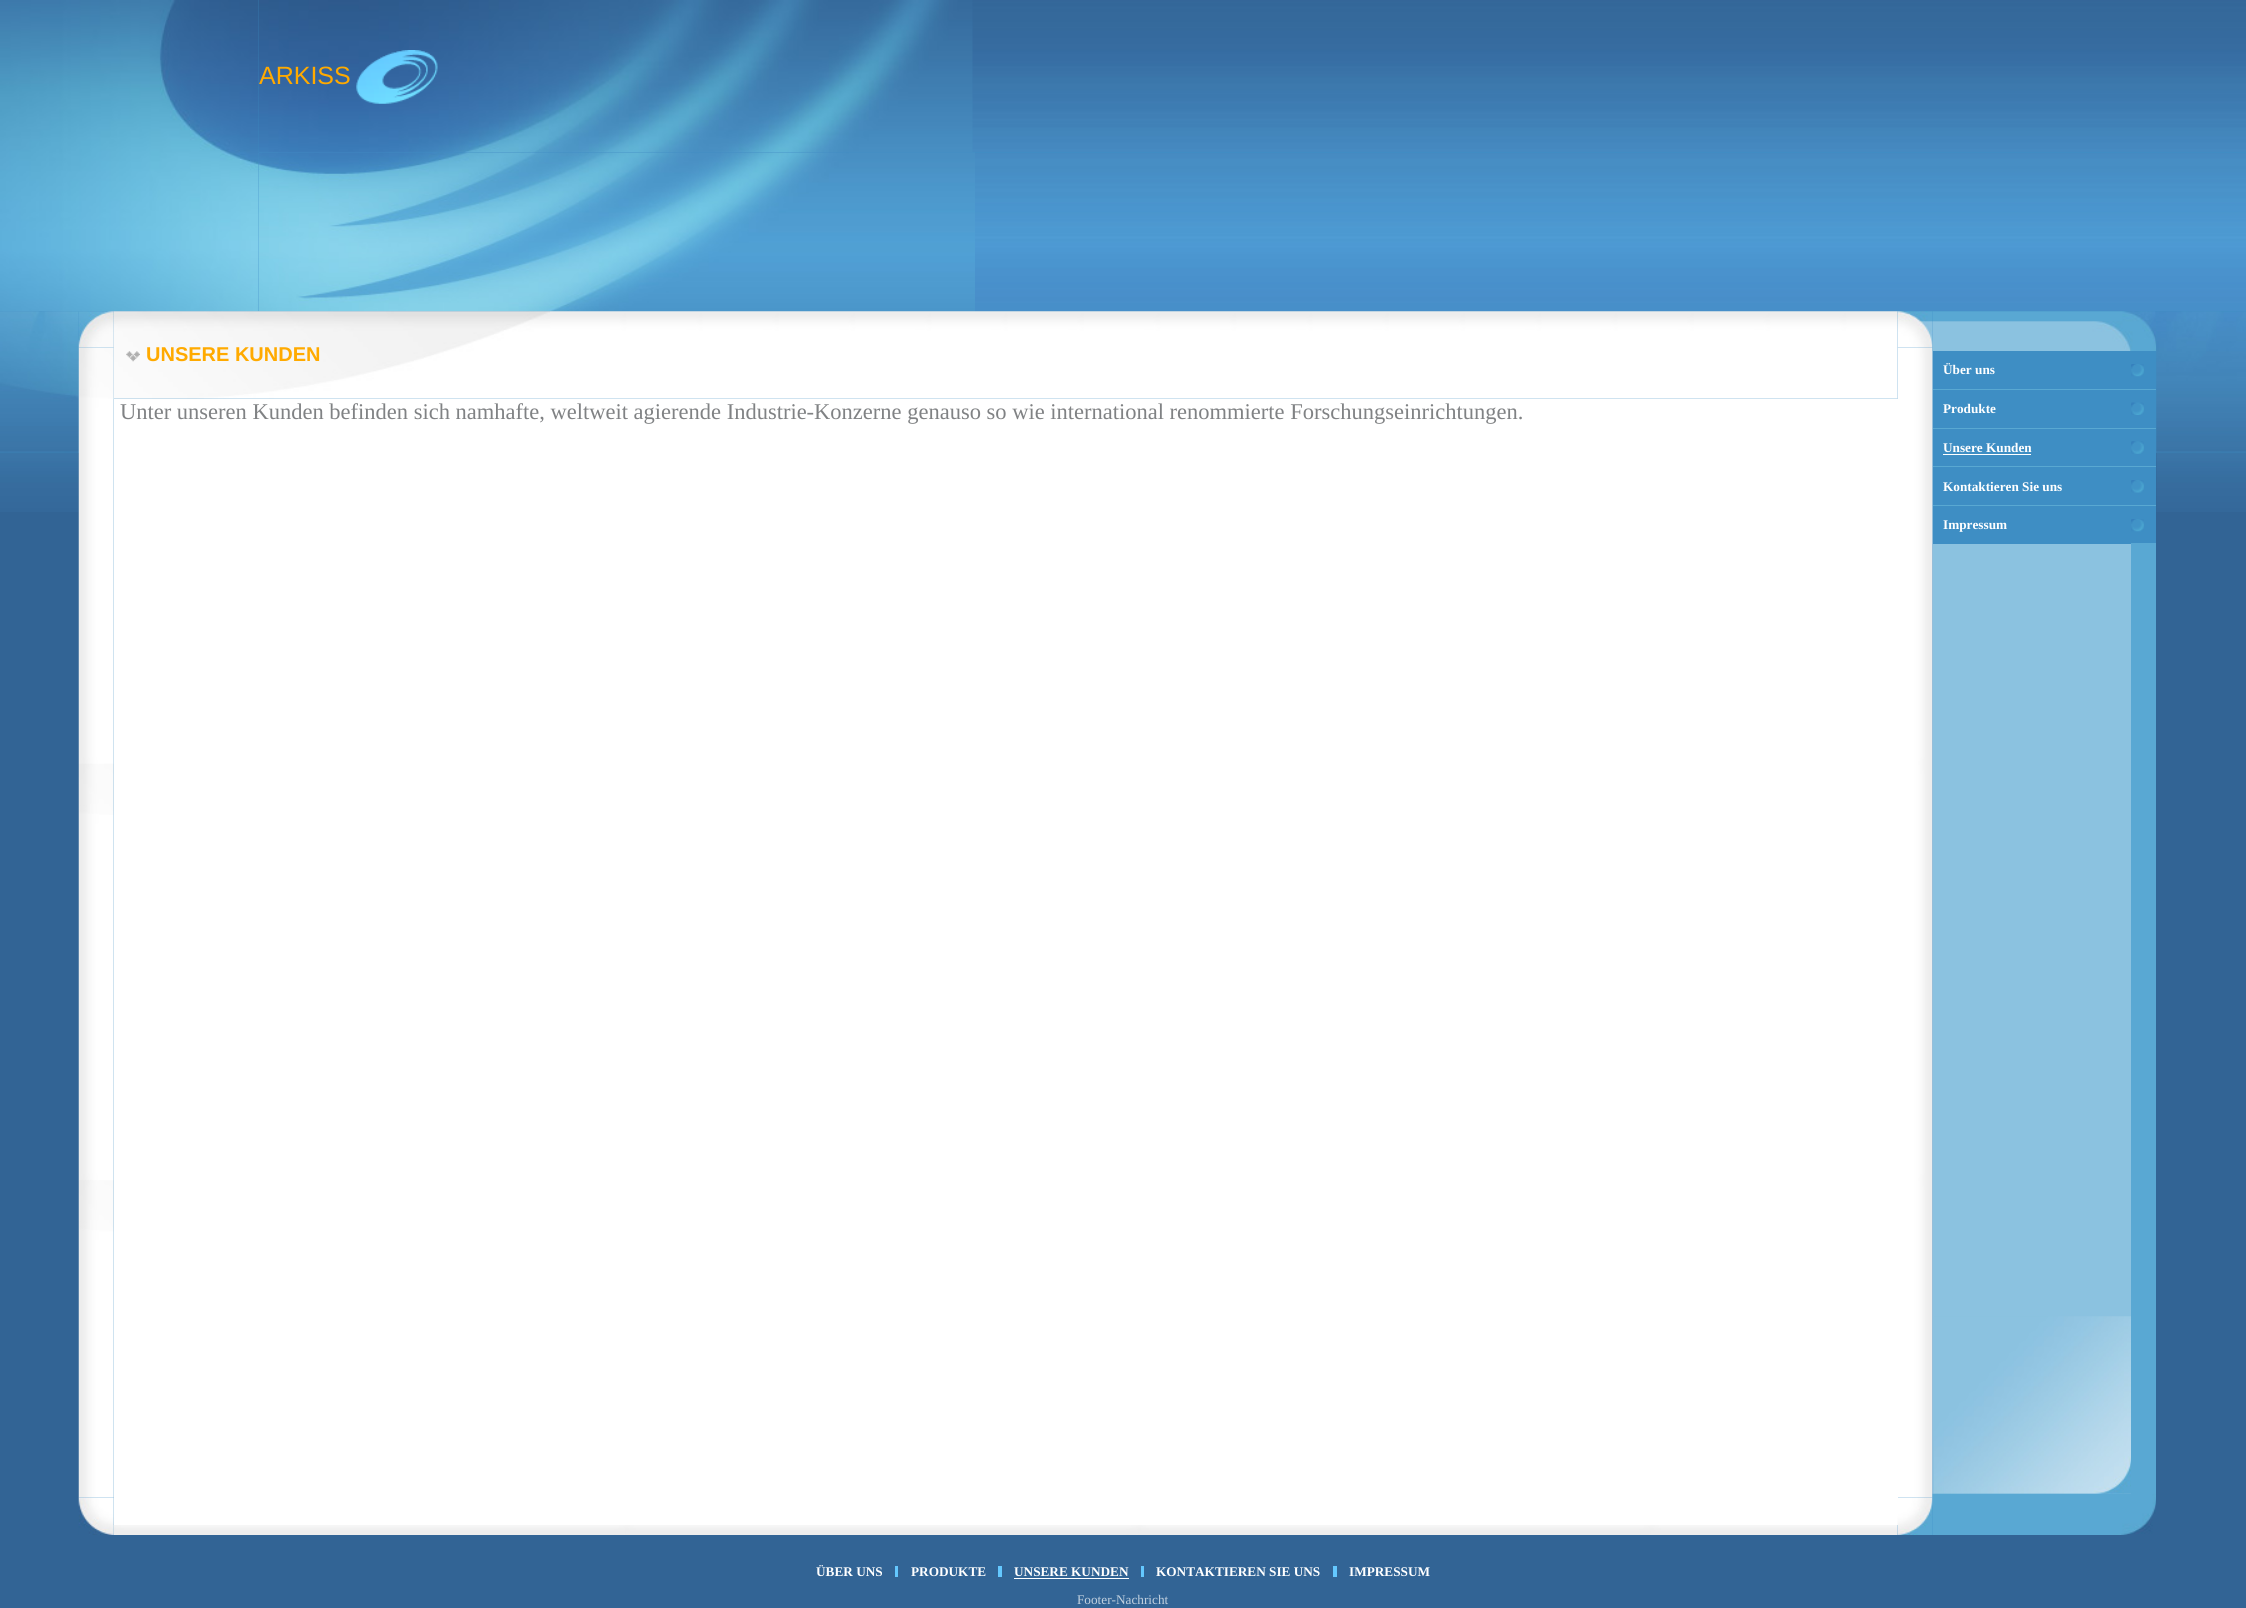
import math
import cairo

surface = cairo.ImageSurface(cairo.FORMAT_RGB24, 2246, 1608)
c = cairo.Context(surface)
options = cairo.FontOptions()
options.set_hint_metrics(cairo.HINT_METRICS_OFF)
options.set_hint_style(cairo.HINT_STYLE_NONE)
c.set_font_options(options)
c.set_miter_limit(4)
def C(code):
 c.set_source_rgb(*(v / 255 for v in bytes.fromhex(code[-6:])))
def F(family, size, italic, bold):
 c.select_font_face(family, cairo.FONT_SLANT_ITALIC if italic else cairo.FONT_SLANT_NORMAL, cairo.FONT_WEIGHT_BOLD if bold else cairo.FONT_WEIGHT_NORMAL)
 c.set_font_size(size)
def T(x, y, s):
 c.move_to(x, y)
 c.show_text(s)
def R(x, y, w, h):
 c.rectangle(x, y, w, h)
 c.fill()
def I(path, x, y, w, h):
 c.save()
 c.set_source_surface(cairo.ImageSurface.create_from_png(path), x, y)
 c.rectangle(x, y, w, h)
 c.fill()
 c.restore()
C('3e8ec4')
c.paint()
I('1.png',0,0,259,312)
I('2.png',972,0,1273,152)
I('3.png',259,0,714,153)
F('Liberation Sans',25,0,0)
C('ffaa00')
T(259,84,'ARKISS')
I('4.png',356,50,82,54)
I('5.png',2245,0,1,152)
I('6.png',258,152,1987,159)
I('7.png',258,152,717,160)
I('8.png',2245,153,1,158)
I('9.png',0,311,79,141)
I('10.png',0,451,79,2)
C('326495')
R(0,453,79,1082)
I('11.png',0,452,79,60)
I('12.png',78,311,36,37)
I('13.png',78,347,36,1151)
I('14.png',78,1497,36,38)
I('15.png',113,311,437,88)
I('16.png',126,351,14,11)
F('Liberation Sans',20,0,1)
C('ffaa00')
T(146,361,'UNSERE KUNDEN')
I('17.png',550,311,1348,88)
C('ffffff')
R(114,399,1784,1126)
F('Liberation Serif',22.5,0,0)
C('808284')
T(120,419,'Unter unseren Kunden befinden sich namhafte, weltweit agierende Industrie-Konzerne genauso so wie international renommierte Forschungseinrichtungen.')
I('18.png',113,1525,1785,10)
I('19.png',1897,311,36,37)
I('20.png',1897,347,36,1151)
I('21.png',1897,1497,36,38)
I('22.png',1932,311,225,41)
C('3e8ec4')
R(1933,351,223,1)
F('Liberation Serif',13.25,0,1)
C('ffffff')
T(1943,374,'Über uns')
I('23.png',2131,364,13,13)
C('59a8d2')
R(1933,389,223,1)
C('ffffff')
T(1943,413,'Produkte')
I('24.png',2131,402,13,13)
C('59a8d2')
R(1933,428,223,1)
C('ffffff')
T(1943,452,'Unsere Kunden')
R(1943,454,88,1)
I('25.png',2131,441,13,13)
C('59a8d2')
R(1933,466,223,1)
C('ffffff')
T(1943,491,'Kontaktieren Sie uns')
I('26.png',2131,480,13,13)
C('59a8d2')
R(1933,505,223,1)
C('ffffff')
T(1943,529,'Impressum')
I('23.png',2131,519,13,13)
C('8bc2e0')
R(1933,544,198,950)
I('27.png',1934,1316,197,178)
C('59a8d3')
R(2131,543,25,951)
I('28.png',1932,1493,224,42)
I('29.png',2156,311,90,141)
I('30.png',2156,451,90,2)
C('326495')
R(2156,453,90,1082)
I('31.png',2156,452,90,60)
R(0,1535,2246,73)
C('ffffff')
T(816,1576,'ÜBER UNS')
C('64c8ff')
R(895,1566,3,11)
C('ffffff')
T(911,1576,'PRODUKTE')
C('64c8ff')
R(998,1566,4,11)
C('ffffff')
T(1014,1576,'UNSERE KUNDEN')
R(1014,1578,115,1)
C('64c8ff')
R(1141,1566,3,11)
C('ffffff')
T(1156,1576,'KONTAKTIEREN SIE UNS')
C('64c8ff')
R(1333,1566,4,11)
C('ffffff')
T(1349,1576,'IMPRESSUM')
F('Liberation Serif',13.25,0,0)
C('c2d1df')
T(1077,1604,'Footer-Nachricht')
surface.write_to_png('o.png')
